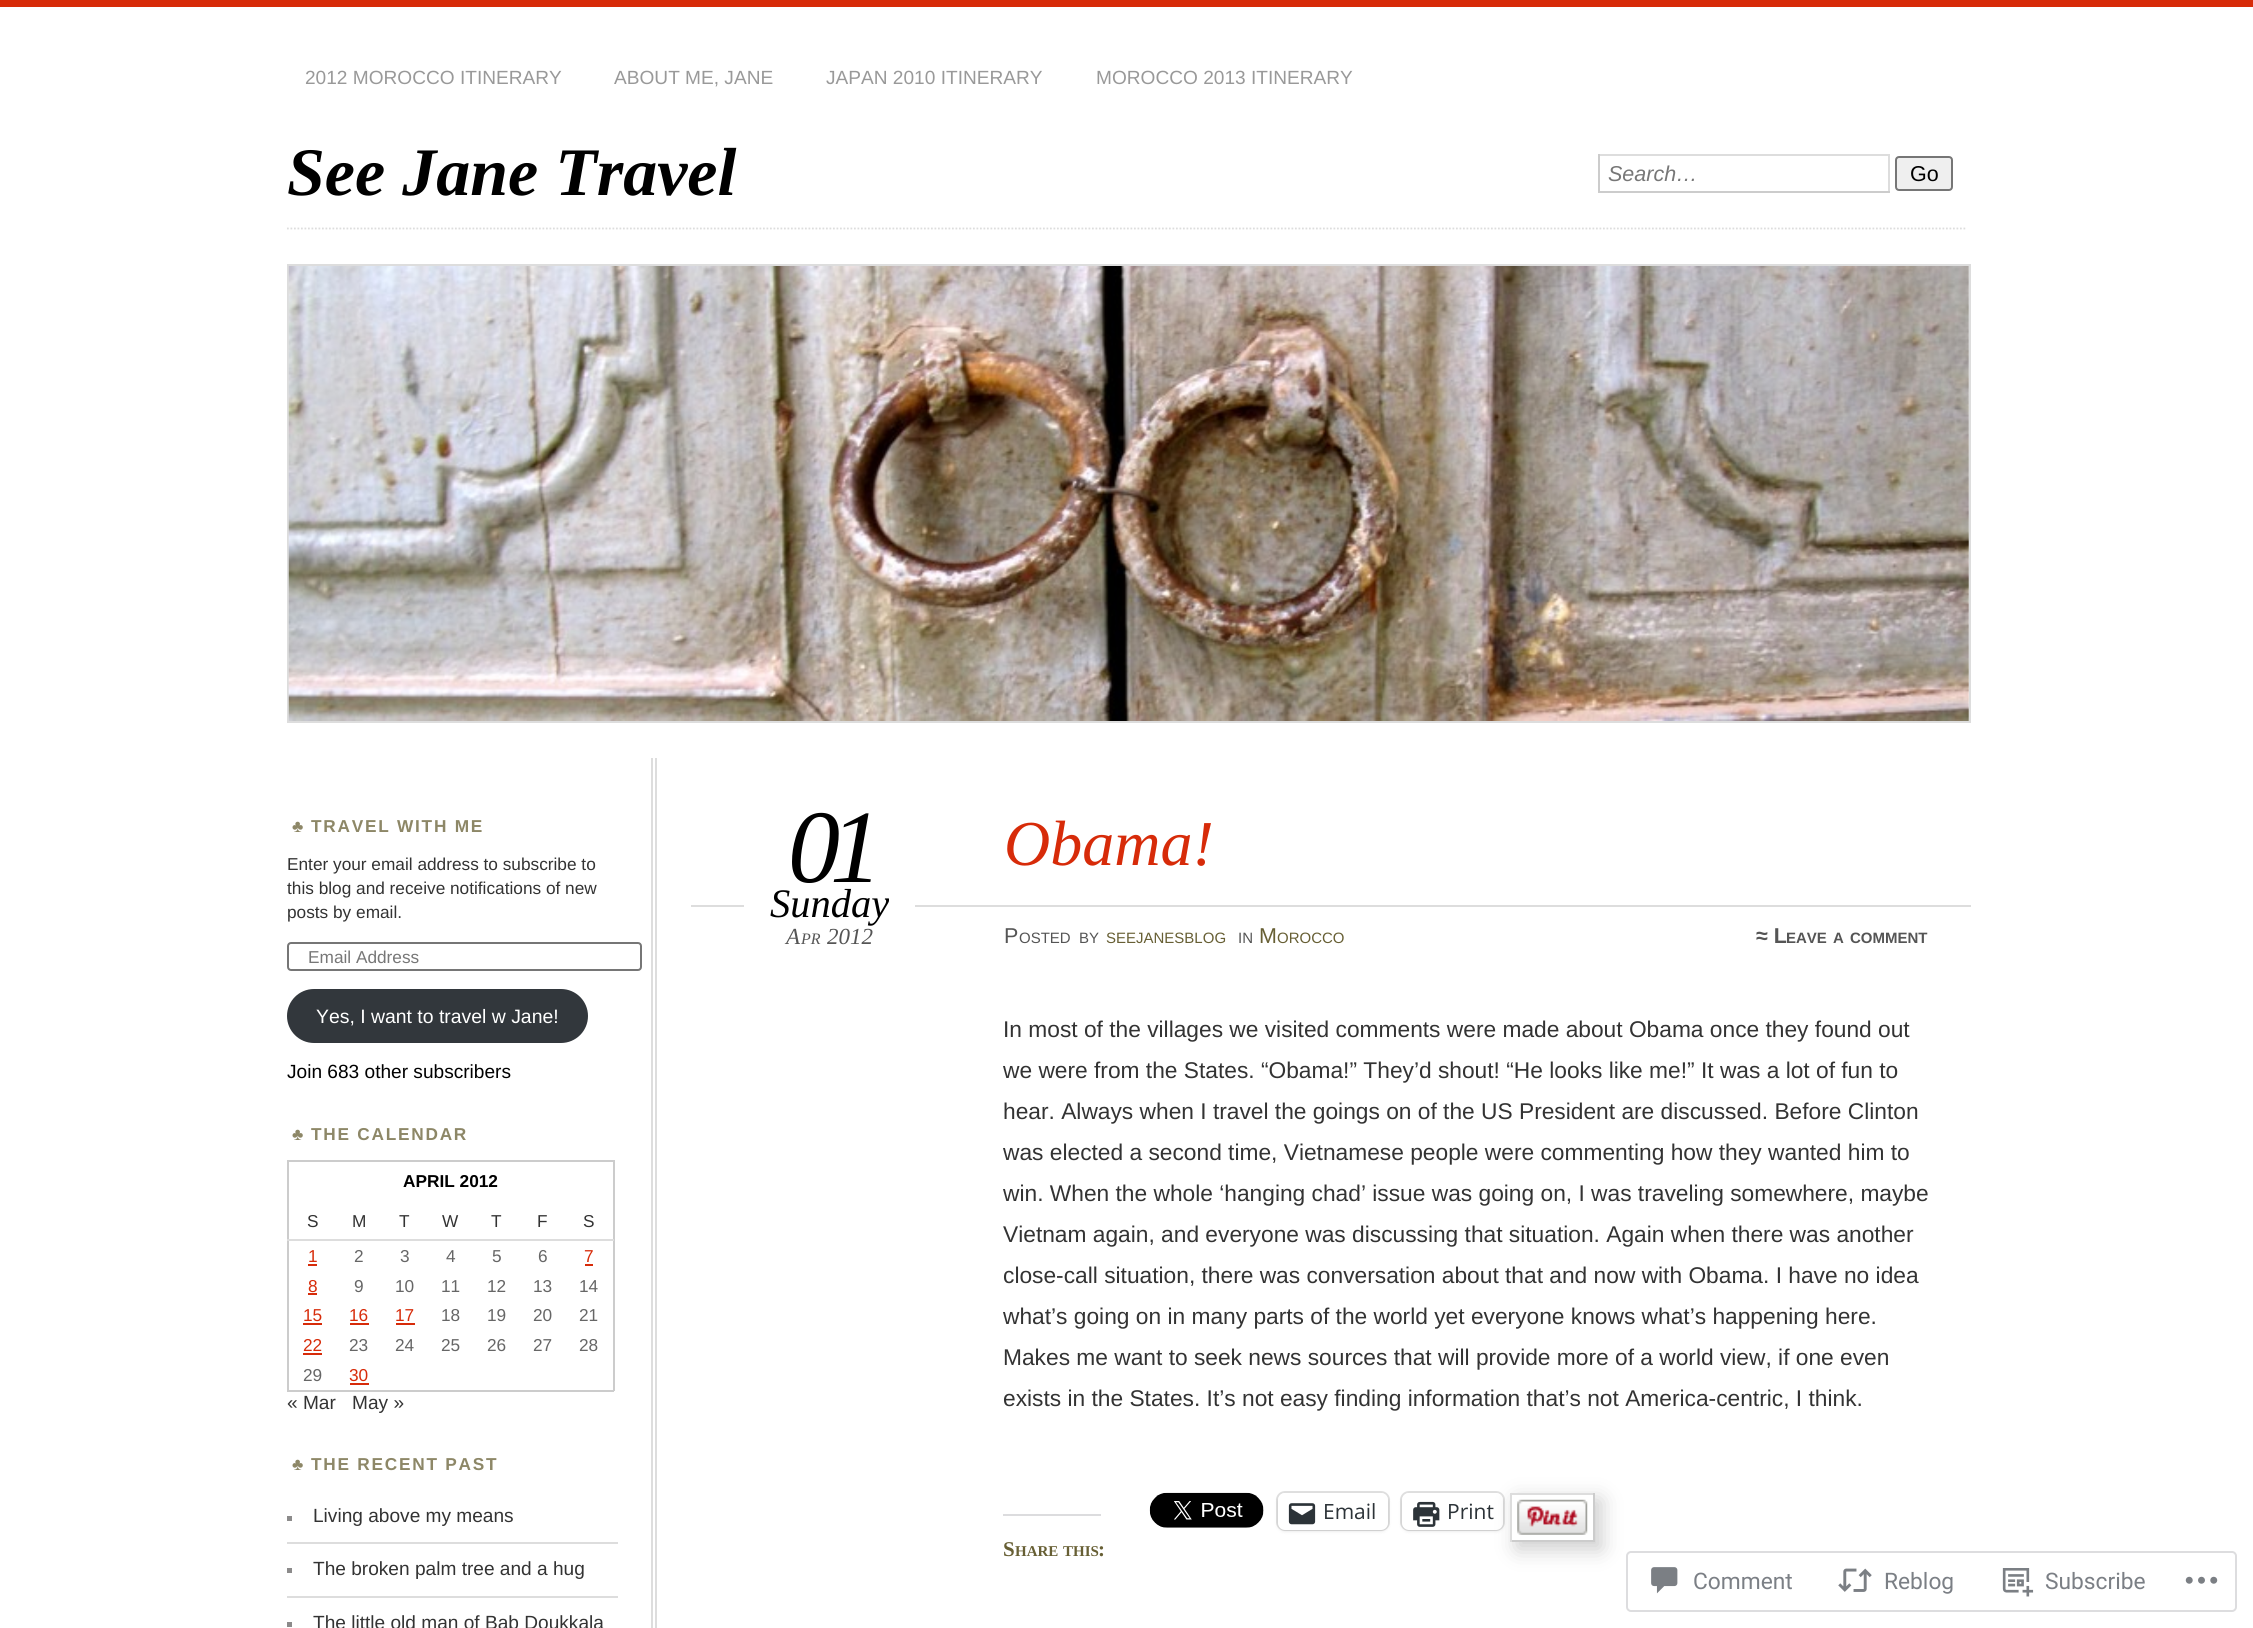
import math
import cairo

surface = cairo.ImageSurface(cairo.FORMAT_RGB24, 2253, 1628)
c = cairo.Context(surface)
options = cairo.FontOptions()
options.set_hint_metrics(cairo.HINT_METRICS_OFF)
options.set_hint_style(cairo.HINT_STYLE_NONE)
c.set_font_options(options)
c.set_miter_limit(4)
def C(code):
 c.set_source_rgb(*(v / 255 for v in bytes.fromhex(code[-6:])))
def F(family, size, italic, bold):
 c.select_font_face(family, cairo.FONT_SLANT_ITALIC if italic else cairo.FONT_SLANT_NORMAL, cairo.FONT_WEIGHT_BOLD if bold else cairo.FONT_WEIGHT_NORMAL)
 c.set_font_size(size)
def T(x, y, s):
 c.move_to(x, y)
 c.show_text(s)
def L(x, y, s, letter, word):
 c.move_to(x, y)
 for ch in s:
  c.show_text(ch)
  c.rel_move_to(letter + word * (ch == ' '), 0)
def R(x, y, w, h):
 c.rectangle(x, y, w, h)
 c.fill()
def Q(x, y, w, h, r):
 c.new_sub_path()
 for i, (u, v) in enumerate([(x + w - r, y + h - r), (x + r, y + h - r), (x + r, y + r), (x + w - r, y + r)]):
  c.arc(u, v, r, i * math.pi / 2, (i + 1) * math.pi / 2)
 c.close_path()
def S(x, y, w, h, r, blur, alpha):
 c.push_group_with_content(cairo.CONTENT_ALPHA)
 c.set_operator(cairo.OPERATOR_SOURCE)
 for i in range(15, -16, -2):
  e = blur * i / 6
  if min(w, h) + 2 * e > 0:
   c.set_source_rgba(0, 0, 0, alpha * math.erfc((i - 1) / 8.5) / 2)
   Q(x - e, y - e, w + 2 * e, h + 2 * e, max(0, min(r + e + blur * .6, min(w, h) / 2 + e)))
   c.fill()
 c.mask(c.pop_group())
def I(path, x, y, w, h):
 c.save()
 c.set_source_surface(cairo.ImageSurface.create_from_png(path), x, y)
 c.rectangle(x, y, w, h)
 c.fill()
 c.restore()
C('ffffff')
c.paint()
C('d72b09')
R(0,0,2253,7)
F('Liberation Sans',19.1,0,0)
C('999999')
T(305,84,'2012 MOROCCO ITINERARY')
T(614,84,'ABOUT ME, JANE')
T(826,84,'JAPAN 2010 ITINERARY')
T(1096,84,'MOROCCO 2013 ITINERARY')
F('Liberation Serif',68,1,1)
C('000000')
T(287,195,'See Jane Travel')
C('dddddd')
R(1598,154,292,2)
R(1888,154,2,39)
C('cccccc')
R(1598,191,292,2)
R(1598,154,2,39)
F('Liberation Sans',21.5,1,0)
C('777777')
T(1608,181,'Search…')
C('efefef')
Q(1896,157,56,33,3)
c.fill_preserve()
C('767676')
c.stroke()
F('Liberation Sans',21.5,0,0)
C('000000')
T(1910,181,'Go')
c.new_path()
c.move_to(287,228.5)
c.line_to(1967,228.5)
C('dddddd')
c.set_line_width(1.8)
c.set_dash([1.75,1.75])
c.stroke()
c.rectangle(288,265,1682,457)
c.set_line_width(2)
c.set_dash([])
c.stroke()
I('1.png',288,266,1681,455)
F('Liberation Sans',17.25,0,1)
C('8d8767')
L(292,832,'♣',1.75,0)
L(311,832,'TRAVEL WITH ME',1.75,0)
F('Liberation Sans',17.25,0,0)
C('333333')
T(287,870,'Enter your email address to subscribe to')
T(287,894,'this blog and receive notifications of new')
T(287,918,'posts by email.')
Q(288,943,353,27,3)
C('767676')
c.stroke()
C('777777')
T(308,963,'Email Address')
C('32373c')
Q(287,989,301,54,27)
c.fill()
F('Liberation Sans',19.4,0,0)
C('ffffff')
T(316,1023,'Yes, I want to travel w Jane!')
F('Liberation Sans',19.1,0,0)
C('000000')
T(287,1078,'Join 683 other subscribers')
F('Liberation Sans',17.25,0,1)
C('8d8767')
L(292,1140,'♣',1.75,0)
L(311,1140,'THE CALENDAR',1.75,0)
C('cccccc')
R(287,1160,327,2)
R(613,1160,2,231)
R(287,1390,327,2)
R(287,1160,2,231)
C('000000')
T(403,1187,'APRIL 2012')
F('Liberation Sans',17.25,0,0)
C('333333')
T(307,1227,'S')
T(352,1227,'M')
T(399,1227,'T')
T(442,1227,'W')
T(491,1227,'T')
T(537,1227,'F')
C('dddddd')
R(287,1239,327,2)
C('333333')
T(583,1227,'S')
C('d72b09')
T(308,1262,'1')
R(308,1264,9,2)
C('666666')
T(354,1262,'2')
T(400,1262,'3')
T(446,1262,'4')
T(492,1262,'5')
T(538,1262,'6')
C('d72b09')
T(584,1262,'7')
R(585,1264,8,2)
T(308,1292,'8')
R(308,1293,9,2)
C('666666')
T(354,1292,'9')
T(395,1292,'10')
T(441,1292,'11')
T(487,1292,'12')
T(533,1292,'13')
T(579,1292,'14')
C('d72b09')
T(303,1321,'15')
R(303,1323,19,2)
T(349,1321,'16')
R(350,1323,19,2)
T(395,1321,'17')
R(396,1323,19,2)
C('666666')
T(441,1321,'18')
T(487,1321,'19')
T(533,1321,'20')
T(579,1321,'21')
C('d72b09')
T(303,1351,'22')
R(303,1353,19,2)
C('666666')
T(349,1351,'23')
T(395,1351,'24')
T(441,1351,'25')
T(487,1351,'26')
T(533,1351,'27')
T(579,1351,'28')
T(303,1381,'29')
C('d72b09')
T(349,1381,'30')
R(350,1383,19,2)
F('Liberation Sans',19.1,0,0)
C('333333')
T(287,1409,'« Mar')
T(352,1409,'May »')
F('Liberation Sans',17.25,0,1)
C('8d8767')
L(292,1470,'♣',1.75,0)
L(311,1470,'THE RECENT PAST',1.75,0)
C('dddddd')
R(287,1542,331,2)
C('8c8b8b')
R(287,1516,5,5)
F('Liberation Sans',19.1,0,0)
C('333333')
T(313,1522,'Living above my means')
C('dddddd')
R(287,1596,331,2)
C('8c8b8b')
R(287,1568,5,5)
C('333333')
T(313,1575,'The broken palm tree and a hug')
C('8c8b8b')
R(287,1622,5,5)
C('333333')
T(313,1629,'The little old man of Bab Doukkala')
C('dddddd')
R(651,758,2,870)
R(655,758,2,870)
F('Liberation Serif',104,1,0)
C('000000')
L(788,882,'01',-10,0)
C('dddddd')
R(691,905,1280,2)
C('ffffff')
R(744,905,171,2)
F('Liberation Serif',40.5,1,0)
C('000000')
T(770,917,'Sunday')
F('Liberation Serif',23,1,0)
C('555555')
T(786,944,'A')
F('Liberation Serif',16,1,0)
T(801,944,'PR')
F('Liberation Serif',23,1,0)
T(827,944,'2012')
F('Liberation Serif',64,1,0)
C('d72b09')
T(1004,865,'Obama!')
F('Liberation Sans',21.5,0,0)
C('555555')
T(1004,943,'P')
F('Liberation Sans',15,0,0)
T(1019,943,'OSTED')
T(1079,943,'BY')
C('675f34')
T(1106,943,'SEEJANESBLOG')
C('555555')
T(1238,943,'IN')
F('Liberation Sans',21.5,0,0)
C('675f34')
T(1259,943,'M')
F('Liberation Sans',15,0,0)
T(1277,943,'OROCCO')
F('Liberation Sans',21.5,0,1)
C('555555')
T(1756,943,'≈ L')
F('Liberation Sans',15,0,1)
T(1786,943,'EAVE')
T(1833,943,'A')
T(1850,943,'COMMENT')
F('Liberation Sans',22.75,0,0)
C('333333')
T(1003,1037,'In most of the villages we visited comments were made about Obama once they found out')
T(1003,1078,'we were from the States. “Obama!” They’d shout! “He looks like me!” It was a lot of fun to')
T(1003,1119,'hear. Always when I travel the goings on of the US President are discussed. Before Clinton')
T(1003,1160,'was elected a second time, Vietnamese people were commenting how they wanted him to')
T(1003,1201,'win. When the whole ‘hanging chad’ issue was going on, I was traveling somewhere, maybe')
T(1003,1242,'Vietnam again, and everyone was discussing that situation. Again when there was another')
T(1003,1283,'close-call situation, there was conversation about that and now with Obama. I have no idea')
T(1003,1324,'what’s going on in many parts of the world yet everyone knows what’s happening here.')
T(1003,1365,'Makes me want to seek news sources that will provide more of a world view, if one even')
T(1003,1406,'exists in the States. It’s not easy finding information that’s not America-centric, I think.')
I('2.png',1149,1492,115,36)
Q(1277,1492,112,38,8)
C('e0e0e0')
c.stroke()
C('000000')
S(1278,1495,110,36,7,2,.12)
C('ffffff')
Q(1278,1493,110,37,7)
c.fill()
I('3.png',1288,1503,28,22)
F('Open Sans',21,0,0)
C('2c3338')
T(1323,1519,'Email')
Q(1401,1492,103,38,8)
C('e0e0e0')
c.stroke()
C('000000')
S(1402,1495,101,36,7,2,.12)
C('ffffff')
Q(1402,1493,101,37,7)
c.fill()
I('4.png',1413,1501,27,26)
C('2c3338')
T(1447,1519,'Print')
c.save()
c.set_fill_rule(cairo.FILL_RULE_EVEN_ODD)
c.new_path()
c.move_to(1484,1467)
c.line_to(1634,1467)
c.line_to(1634,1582)
c.line_to(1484,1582)
c.close_path()
c.move_to(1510,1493)
c.line_to(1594,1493)
c.line_to(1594,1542)
c.line_to(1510,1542)
c.close_path()
c.clip()
C('cccccc')
S(1517,1500,84,49,0,10.5,1)
c.restore()
C('dddddd')
R(1510,1493,84,2)
C('cccccc')
R(1593,1493,2,49)
R(1510,1540,84,2)
C('dddddd')
R(1510,1493,2,49)
I('5.png',1517,1499,71,36)
C('dcdcde')
R(1003,1514,98,2)
F('Liberation Serif',21,0,1)
C('675f34')
T(1003,1556,'S')
F('Liberation Serif',15,0,1)
T(1015,1556,'HARE')
T(1063,1556,'THIS')
F('Liberation Serif',21,0,1)
T(1098,1556,':')
Q(1627,1552,609,59,4)
C('dddddf')
c.stroke()
I('6.png',1651,1567,27,27)
F('Roboto',22.75,0,0)
C('7b7f85')
T(1693,1589,'Comment')
I('7.png',1838,1568,34,24)
T(1884,1589,'Reblog')
I('8.png',2002,1568,32,29)
T(2045,1589,'Subscribe')
I('9.png',2185,1576,33,8)
surface.write_to_png('o.png')
